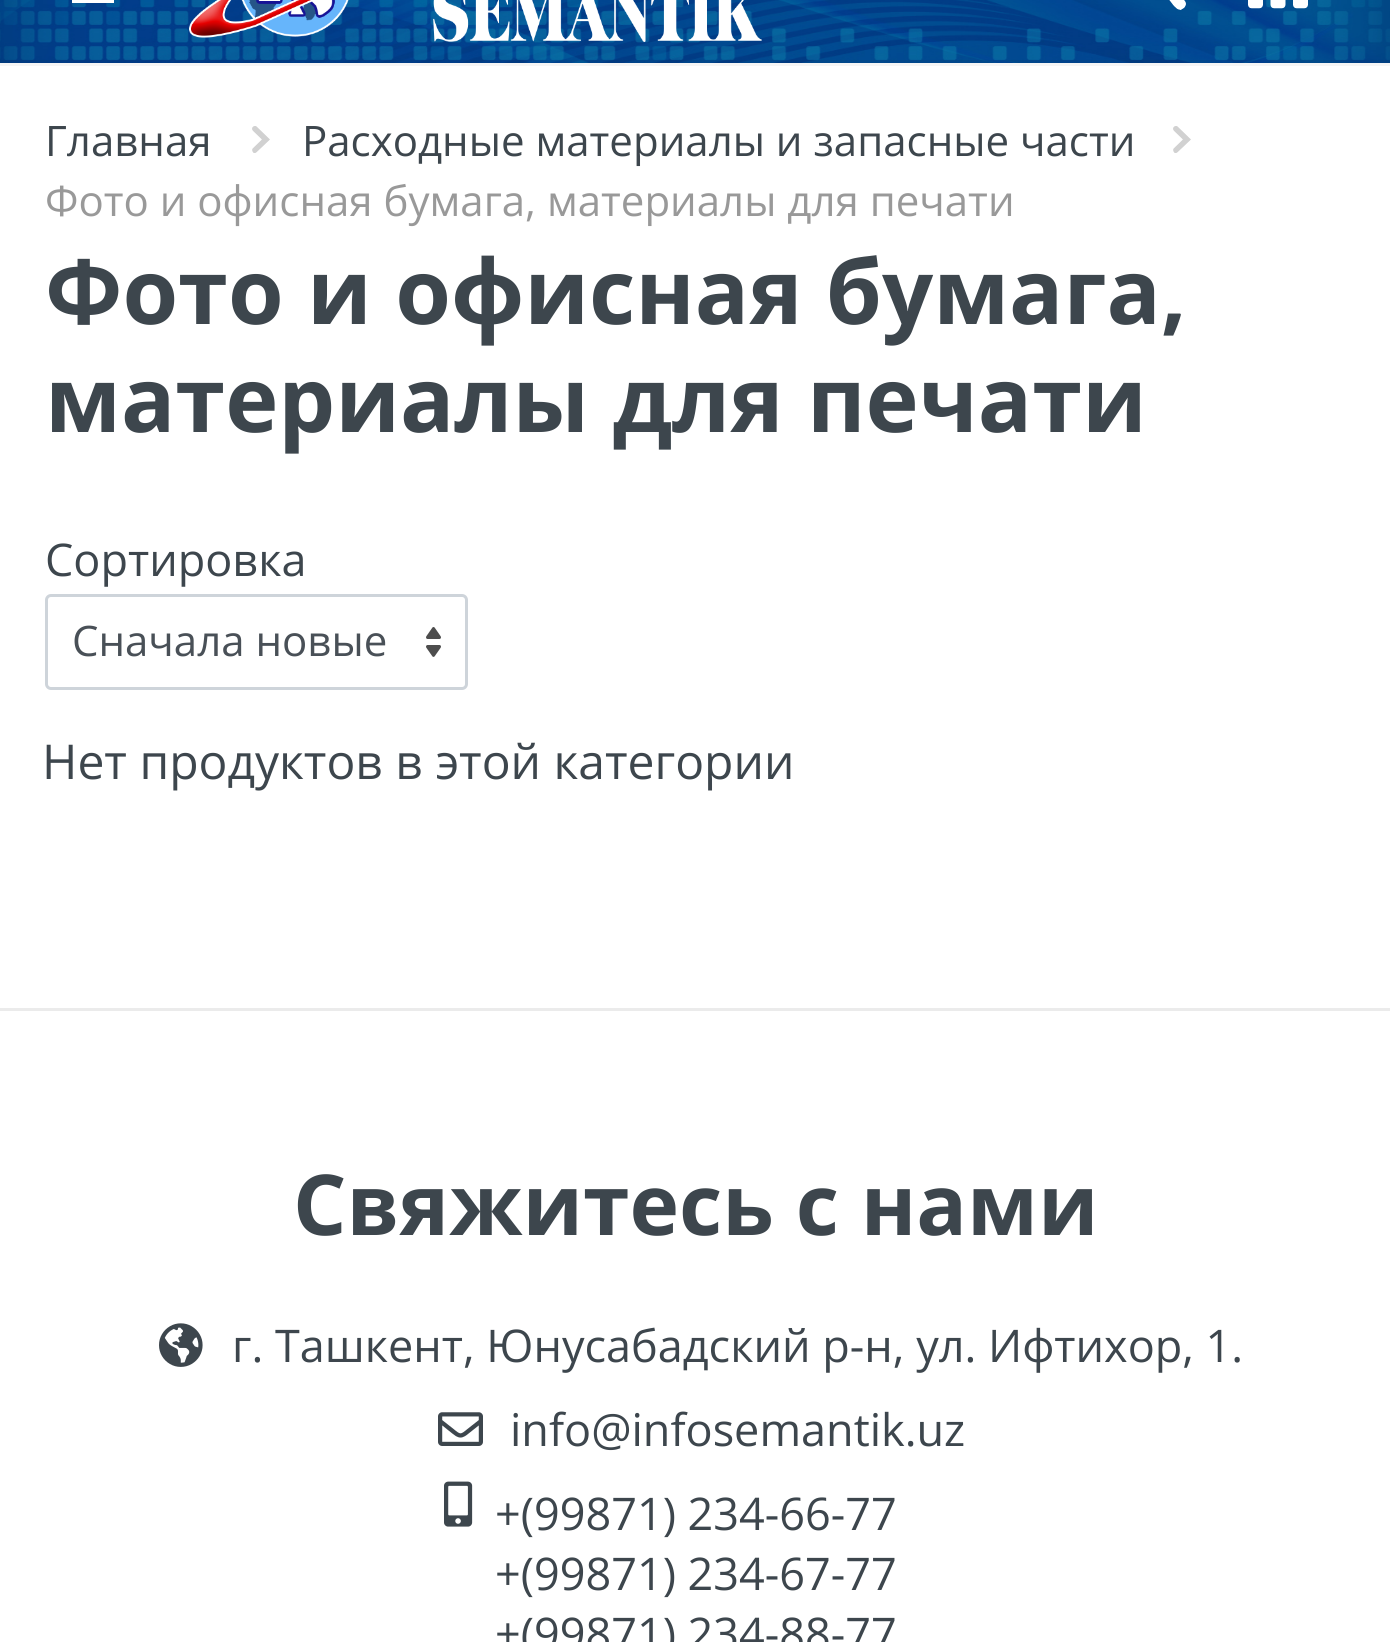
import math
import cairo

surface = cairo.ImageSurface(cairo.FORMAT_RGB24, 1390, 1642)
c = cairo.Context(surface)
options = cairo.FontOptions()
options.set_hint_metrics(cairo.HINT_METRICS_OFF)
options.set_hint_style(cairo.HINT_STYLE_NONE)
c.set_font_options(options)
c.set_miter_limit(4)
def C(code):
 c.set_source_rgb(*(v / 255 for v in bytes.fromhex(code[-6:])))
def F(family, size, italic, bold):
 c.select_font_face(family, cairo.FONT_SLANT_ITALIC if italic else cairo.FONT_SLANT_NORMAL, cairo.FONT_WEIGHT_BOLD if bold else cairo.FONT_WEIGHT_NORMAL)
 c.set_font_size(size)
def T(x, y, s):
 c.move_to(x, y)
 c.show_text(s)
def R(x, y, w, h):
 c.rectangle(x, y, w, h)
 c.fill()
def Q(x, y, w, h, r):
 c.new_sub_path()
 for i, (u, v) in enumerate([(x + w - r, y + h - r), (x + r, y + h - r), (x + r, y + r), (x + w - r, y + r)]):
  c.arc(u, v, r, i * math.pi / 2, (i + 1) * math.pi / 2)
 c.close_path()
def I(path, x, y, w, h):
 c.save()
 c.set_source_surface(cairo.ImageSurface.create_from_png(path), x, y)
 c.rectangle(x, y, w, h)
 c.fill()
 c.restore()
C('ffffff')
c.paint()
C('f5f5f5')
R(0,63,1390,3)
I('1.png',0,0,1390,63)
c.set_source_rgba(0,0,0,0.04)
R(0,60,1390,3)
C('ffffff')
R(72,0,42,3)
I('2.png',189,0,573,42)
I('3.png',1169,0,17,10)
I('4.png',1248,0,60,9)
F('Open Sans',42,0,0)
C('3d464d')
T(45,156,'Главная')
I('5.png',252,126,18,27)
T(302,156,'Расходные материалы и запасные части')
I('5.png',1173,126,18,27)
C('999999')
T(45,216,'Фото и офисная бумага, материалы для печати')
F('Open Sans',90,0,1)
C('3d464d')
T(45,324,'Фото и офисная бумага,')
T(45,432,'материалы для печати')
F('Open Sans',45,0,0)
T(45,576,'Сортировка')
I('6.png',426,627,15,30)
Q(46.5,595.5,420,93,4.5)
C('ced4da')
c.set_line_width(3)
c.stroke()
F('Open Sans',42,0,0)
C('495057')
T(72,656,'Сначала новые')
F('Open Sans',48,0,0)
C('3d464d')
T(42,779,'Нет продуктов в этой категории')
C('ebebeb')
R(0,1008,1390,3)
F('Open Sans',84,0,1)
C('3d464d')
T(293,1235,'Свяжитесь с нами')
I('7.png',159,1323,44,44)
F('Open Sans',45,0,0)
T(232,1362,'г. Ташкент, Юнусабадский р-н, ул. Ифтихор, 1.')
I('8.png',438,1412,45,34)
T(510,1446,'info@infosemantik.uz')
I('9.png',444,1481,29,46)
T(495,1530,'+(99871) 234-66-77')
T(495,1590,'+(99871) 234-67-77')
T(495,1650,'+(99871) 234-88-77')
surface.write_to_png('o.png')
